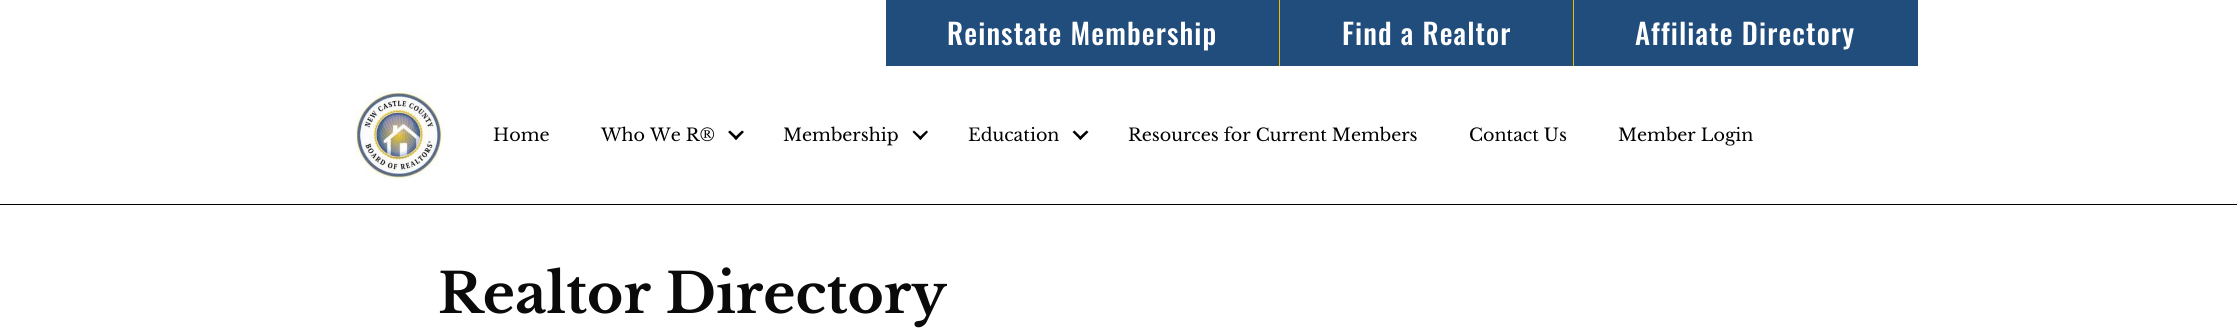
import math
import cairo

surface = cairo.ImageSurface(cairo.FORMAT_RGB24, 2237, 331)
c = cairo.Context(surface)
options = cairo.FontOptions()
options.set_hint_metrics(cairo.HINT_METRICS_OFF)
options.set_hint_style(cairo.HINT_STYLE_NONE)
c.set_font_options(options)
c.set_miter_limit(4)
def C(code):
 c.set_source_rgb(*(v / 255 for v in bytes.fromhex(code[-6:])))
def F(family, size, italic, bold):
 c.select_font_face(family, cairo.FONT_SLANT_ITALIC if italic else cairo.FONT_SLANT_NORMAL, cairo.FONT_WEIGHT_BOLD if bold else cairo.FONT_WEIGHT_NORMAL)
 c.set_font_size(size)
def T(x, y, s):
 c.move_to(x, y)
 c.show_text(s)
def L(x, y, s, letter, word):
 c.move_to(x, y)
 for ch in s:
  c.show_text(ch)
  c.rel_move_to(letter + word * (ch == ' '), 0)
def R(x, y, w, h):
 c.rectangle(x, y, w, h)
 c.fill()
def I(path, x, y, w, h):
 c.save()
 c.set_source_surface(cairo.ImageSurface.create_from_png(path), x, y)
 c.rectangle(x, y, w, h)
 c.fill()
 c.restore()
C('ffffff')
c.paint()
C('000000')
R(0,204,2237,1)
C('214d7c')
R(886,0,1032,66)
F('Oswald Medium',28.75,0,0)
C('ffffff')
L(947,45,'Reinstate Membership',1.1,0)
C('eabf00')
R(1279,0,1,66)
C('ffffff')
L(1342,45,'Find a Realtor',1.1,0)
C('eabf00')
R(1573,0,1,66)
C('ffffff')
L(1635,45,'Affiliate Directory',1.1,0)
I('1.png',355,91,88,88)
F('Libre Baskerville',17.5,0,0)
C('000000')
T(493,141,'Home')
T(601,141,'Who We R®')
c.new_path()
c.move_to(742,130.5)
c.line_to(744,132)
c.line_to(736,140)
c.line_to(734,138)
c.close_path()
c.fill()
c.new_path()
c.move_to(730,130.5)
c.line_to(738,138)
c.line_to(736,140)
c.line_to(728,132)
c.close_path()
c.fill()
T(783,141,'Membership')
c.new_path()
c.move_to(926.5,130.5)
c.line_to(928,132)
c.line_to(920.5,140)
c.line_to(918.5,138)
c.close_path()
c.fill()
c.new_path()
c.move_to(914,130.5)
c.line_to(922,138)
c.line_to(920.5,140)
c.line_to(912.5,132)
c.close_path()
c.fill()
T(968,141,'Education')
c.new_path()
c.move_to(1086.5,130.5)
c.line_to(1088.5,132)
c.line_to(1080.5,140)
c.line_to(1078.5,138)
c.close_path()
c.fill()
c.new_path()
c.move_to(1074.5,130.5)
c.line_to(1082,138)
c.line_to(1080.5,140)
c.line_to(1072.5,132)
c.close_path()
c.fill()
T(1128,141,'Resources for Current Members')
T(1469,141,'Contact Us')
T(1618,141,'Member Login')
F('Libre Baskerville',55,0,1)
C('0a0a0a')
T(438,313,'Realtor Directory')
surface.write_to_png('o.png')
